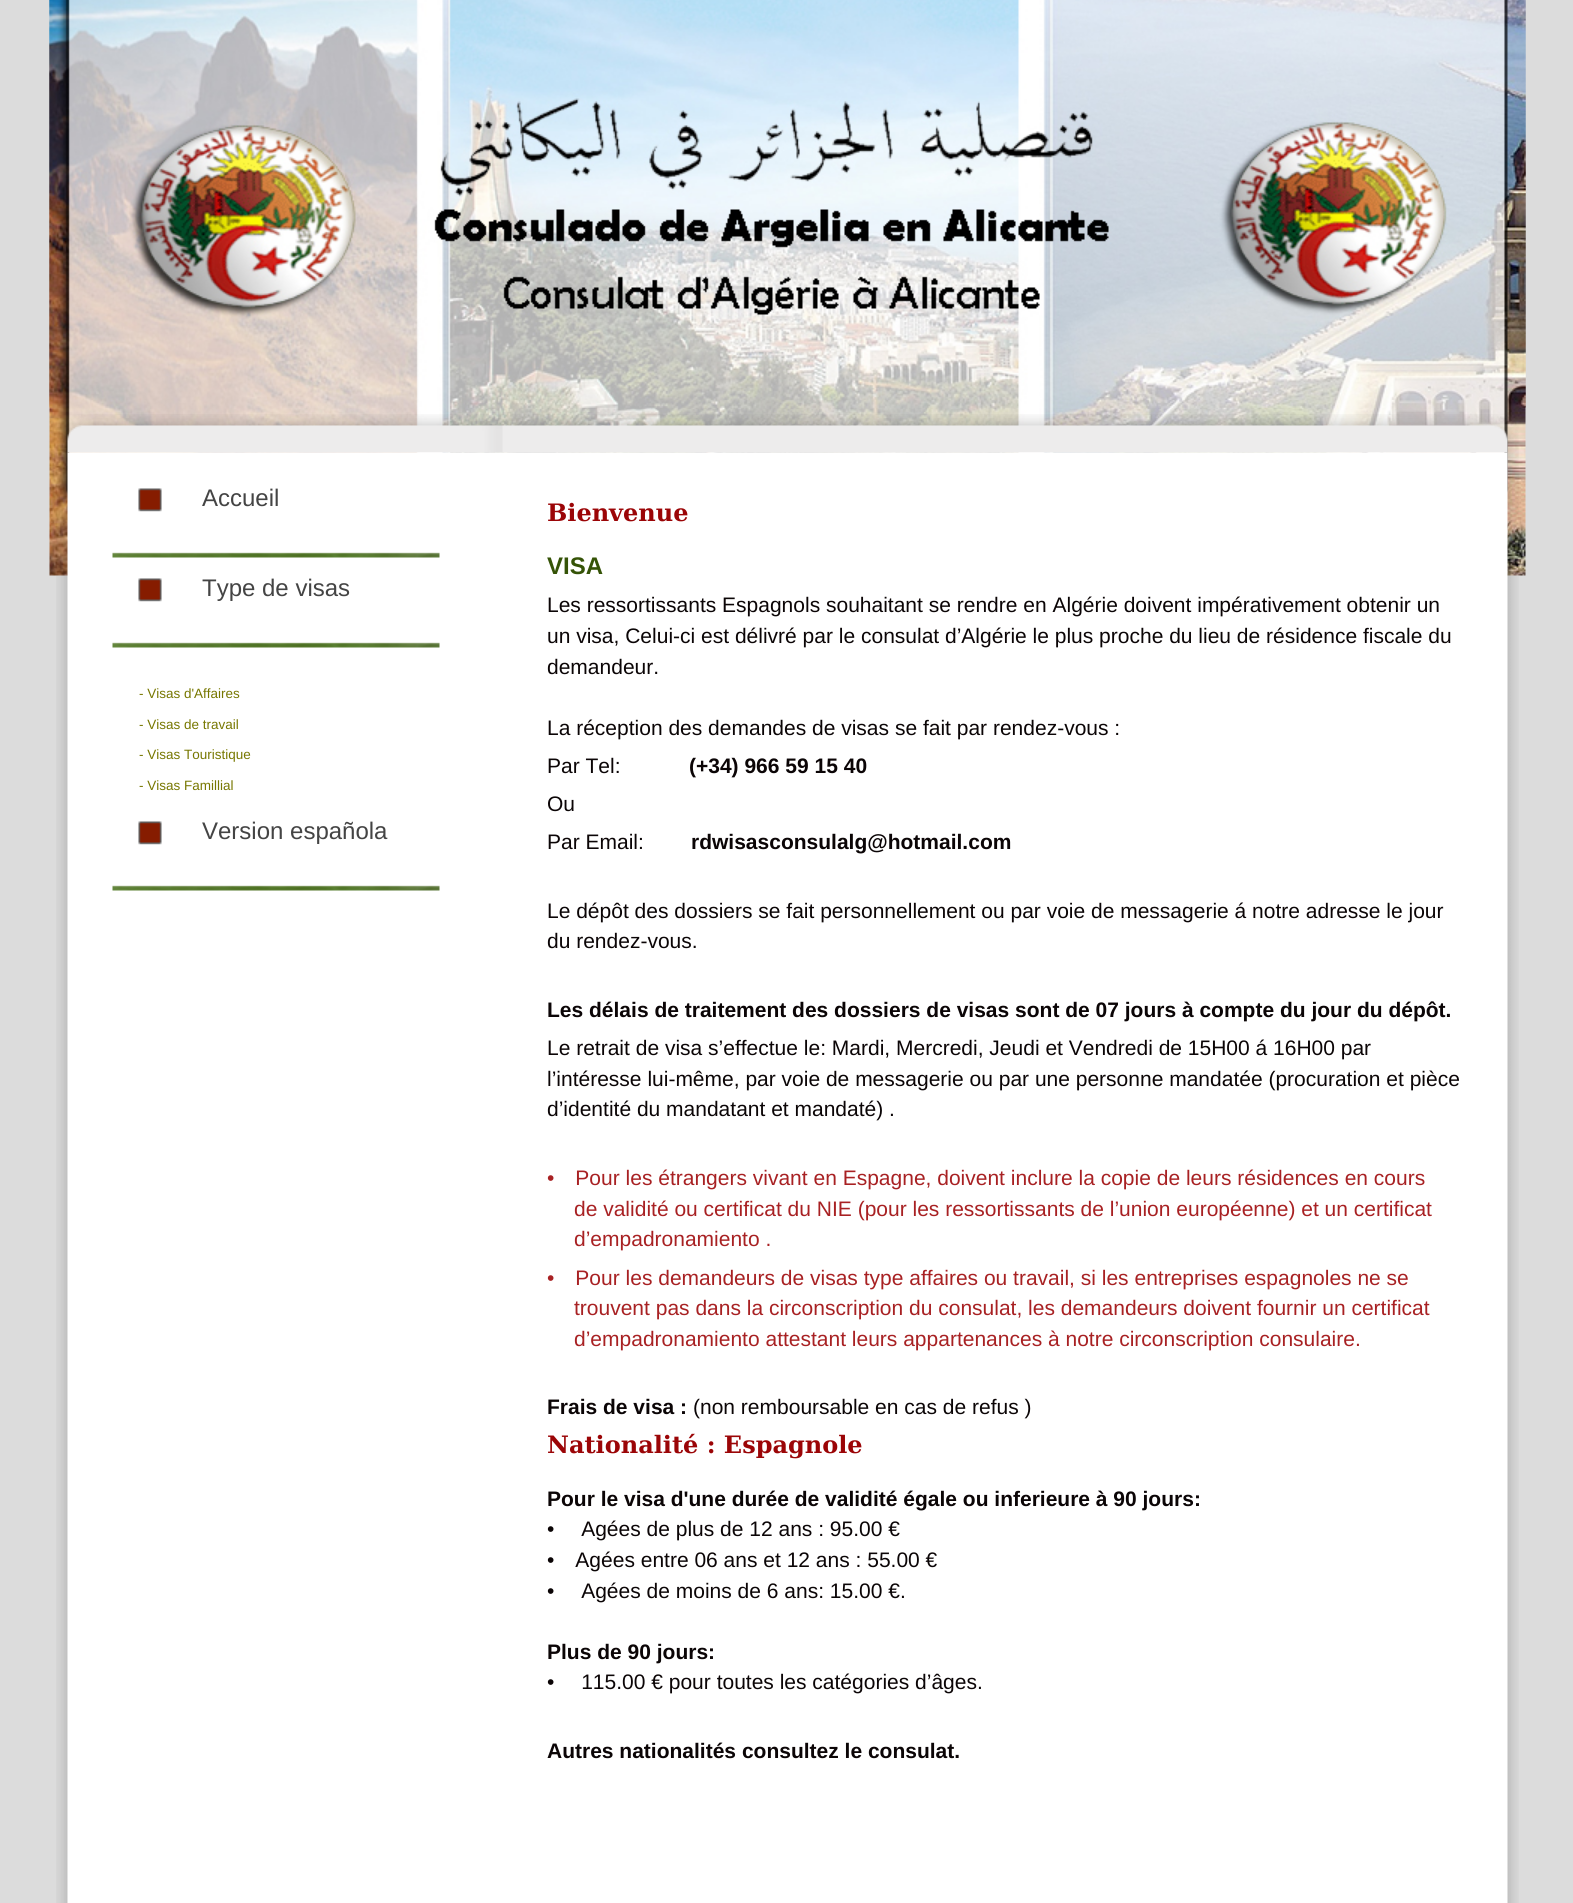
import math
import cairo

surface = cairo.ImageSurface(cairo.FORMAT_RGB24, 1573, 1903)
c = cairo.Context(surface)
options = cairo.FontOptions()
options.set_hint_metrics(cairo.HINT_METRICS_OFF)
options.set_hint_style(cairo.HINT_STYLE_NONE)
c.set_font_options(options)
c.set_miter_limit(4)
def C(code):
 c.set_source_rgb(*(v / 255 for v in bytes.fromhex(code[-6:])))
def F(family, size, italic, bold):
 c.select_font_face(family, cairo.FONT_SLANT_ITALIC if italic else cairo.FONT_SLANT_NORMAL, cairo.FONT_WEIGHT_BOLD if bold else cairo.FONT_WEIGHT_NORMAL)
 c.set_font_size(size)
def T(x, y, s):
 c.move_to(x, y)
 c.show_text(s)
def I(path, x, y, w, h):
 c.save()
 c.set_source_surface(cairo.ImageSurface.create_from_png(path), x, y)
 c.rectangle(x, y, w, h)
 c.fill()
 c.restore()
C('dcdcdc')
c.paint()
I('1.png',49,0,1477,576)
I('2.png',49,0,1477,408)
I('3.png',56,414,1463,39)
I('4.png',56,452,1463,1451)
I('5.png',112,552,328,6)
I('6.png',138,488,24,24)
F('Liberation Sans',24,0,0)
C('444444')
T(202,506,'Accueil')
I('5.png',112,642,328,6)
I('6.png',138,578,24,24)
T(202,596,'Type de visas')
F('Liberation Sans',13.5,0,0)
C('777700')
T(139,698,'- Visas d\'Affaires')
T(139,729,'- Visas de travail')
T(139,759,'- Visas Touristique')
T(139,790,'- Visas Famillial')
I('5.png',112,885,328,6)
I('6.png',138,821,24,24)
F('Liberation Sans',24,0,0)
C('444444')
T(202,839,'Version española')
F('DejaVu Serif',24,0,1)
C('9b0507')
T(547,521,'Bienvenue')
F('Liberation Sans',24,0,1)
C('355307')
T(547,574,'VISA')
F('Liberation Sans',21,0,0)
C('0b0506')
T(547,612,'Les ressortissants Espagnols souhaitant se rendre en Algérie doivent impérativement obtenir un')
T(547,643,'un visa, Celui-ci est délivré par le consulat d’Algérie le plus proche du lieu de résidence fiscale du')
T(547,674,'demandeur.')
T(547,735,'La réception des demandes de visas se fait par rendez-vous :')
T(547,773,'Par Tel:')
F('Liberation Sans',21,0,1)
T(689,773,'(+34) 966 59 15 40')
F('Liberation Sans',21,0,0)
T(547,811,'Ou')
T(547,849,'Par Email:')
F('Liberation Sans',21,0,1)
T(691,849,'rdwisasconsulalg@hotmail.com')
F('Liberation Sans',21,0,0)
T(547,918,'Le dépôt des dossiers se fait personnellement ou par voie de messagerie á notre adresse le jour')
T(547,948,'du rendez-vous.')
F('Liberation Sans',21,0,1)
T(547,1017,'Les délais de traitement des dossiers de visas sont de 07 jours à compte du jour du dépôt.')
F('Liberation Sans',21,0,0)
T(547,1055,'Le retrait de visa s’effectue le: Mardi, Mercredi, Jeudi et Vendredi de 15H00 á 16H00 par')
T(547,1086,'l’intéresse lui-même, par voie de messagerie ou par une personne mandatée (procuration et pièce')
T(547,1116,'d’identité du mandatant et mandaté) .')
C('a82123')
T(547,1185,'• Pour les étrangers vivant en Espagne, doivent inclure la copie de leurs résidences en cours')
T(574,1216,'de validité ou certificat du NIE (pour les ressortissants de l’union européenne) et un certificat')
T(574,1246,'d’empadronamiento .')
T(547,1285,'• Pour les demandeurs de visas type affaires ou travail, si les entreprises espagnoles ne se')
T(574,1315,'trouvent pas dans la circonscription du consulat, les demandeurs doivent fournir un certificat')
T(574,1346,'d’empadronamiento attestant leurs appartenances à notre circonscription consulaire.')
F('Liberation Sans',21,0,1)
C('0b0506')
T(547,1414,'Frais de visa :')
F('Liberation Sans',21,0,0)
T(693,1414,'(non remboursable en cas de refus )')
F('DejaVu Serif',24,0,1)
C('9b0507')
T(547,1453,'Nationalité : Espagnole')
F('Liberation Sans',21,0,1)
C('0b0506')
T(547,1506,'Pour le visa d\'une durée de validité égale ou inferieure à 90 jours:')
F('Liberation Sans',21,0,0)
T(547,1536,'•  Agées de plus de 12 ans : 95.00 €')
T(547,1567,'• Agées entre 06 ans et 12 ans : 55.00 €')
T(547,1598,'•  Agées de moins de 6 ans: 15.00 €.')
F('Liberation Sans',21,0,1)
T(547,1659,'Plus de 90 jours:')
F('Liberation Sans',21,0,0)
T(547,1689,'•  115.00 € pour toutes les catégories d’âges.')
F('Liberation Sans',21,0,1)
T(547,1758,'Autres nationalités consultez le consulat.')
surface.write_to_png('o.png')
